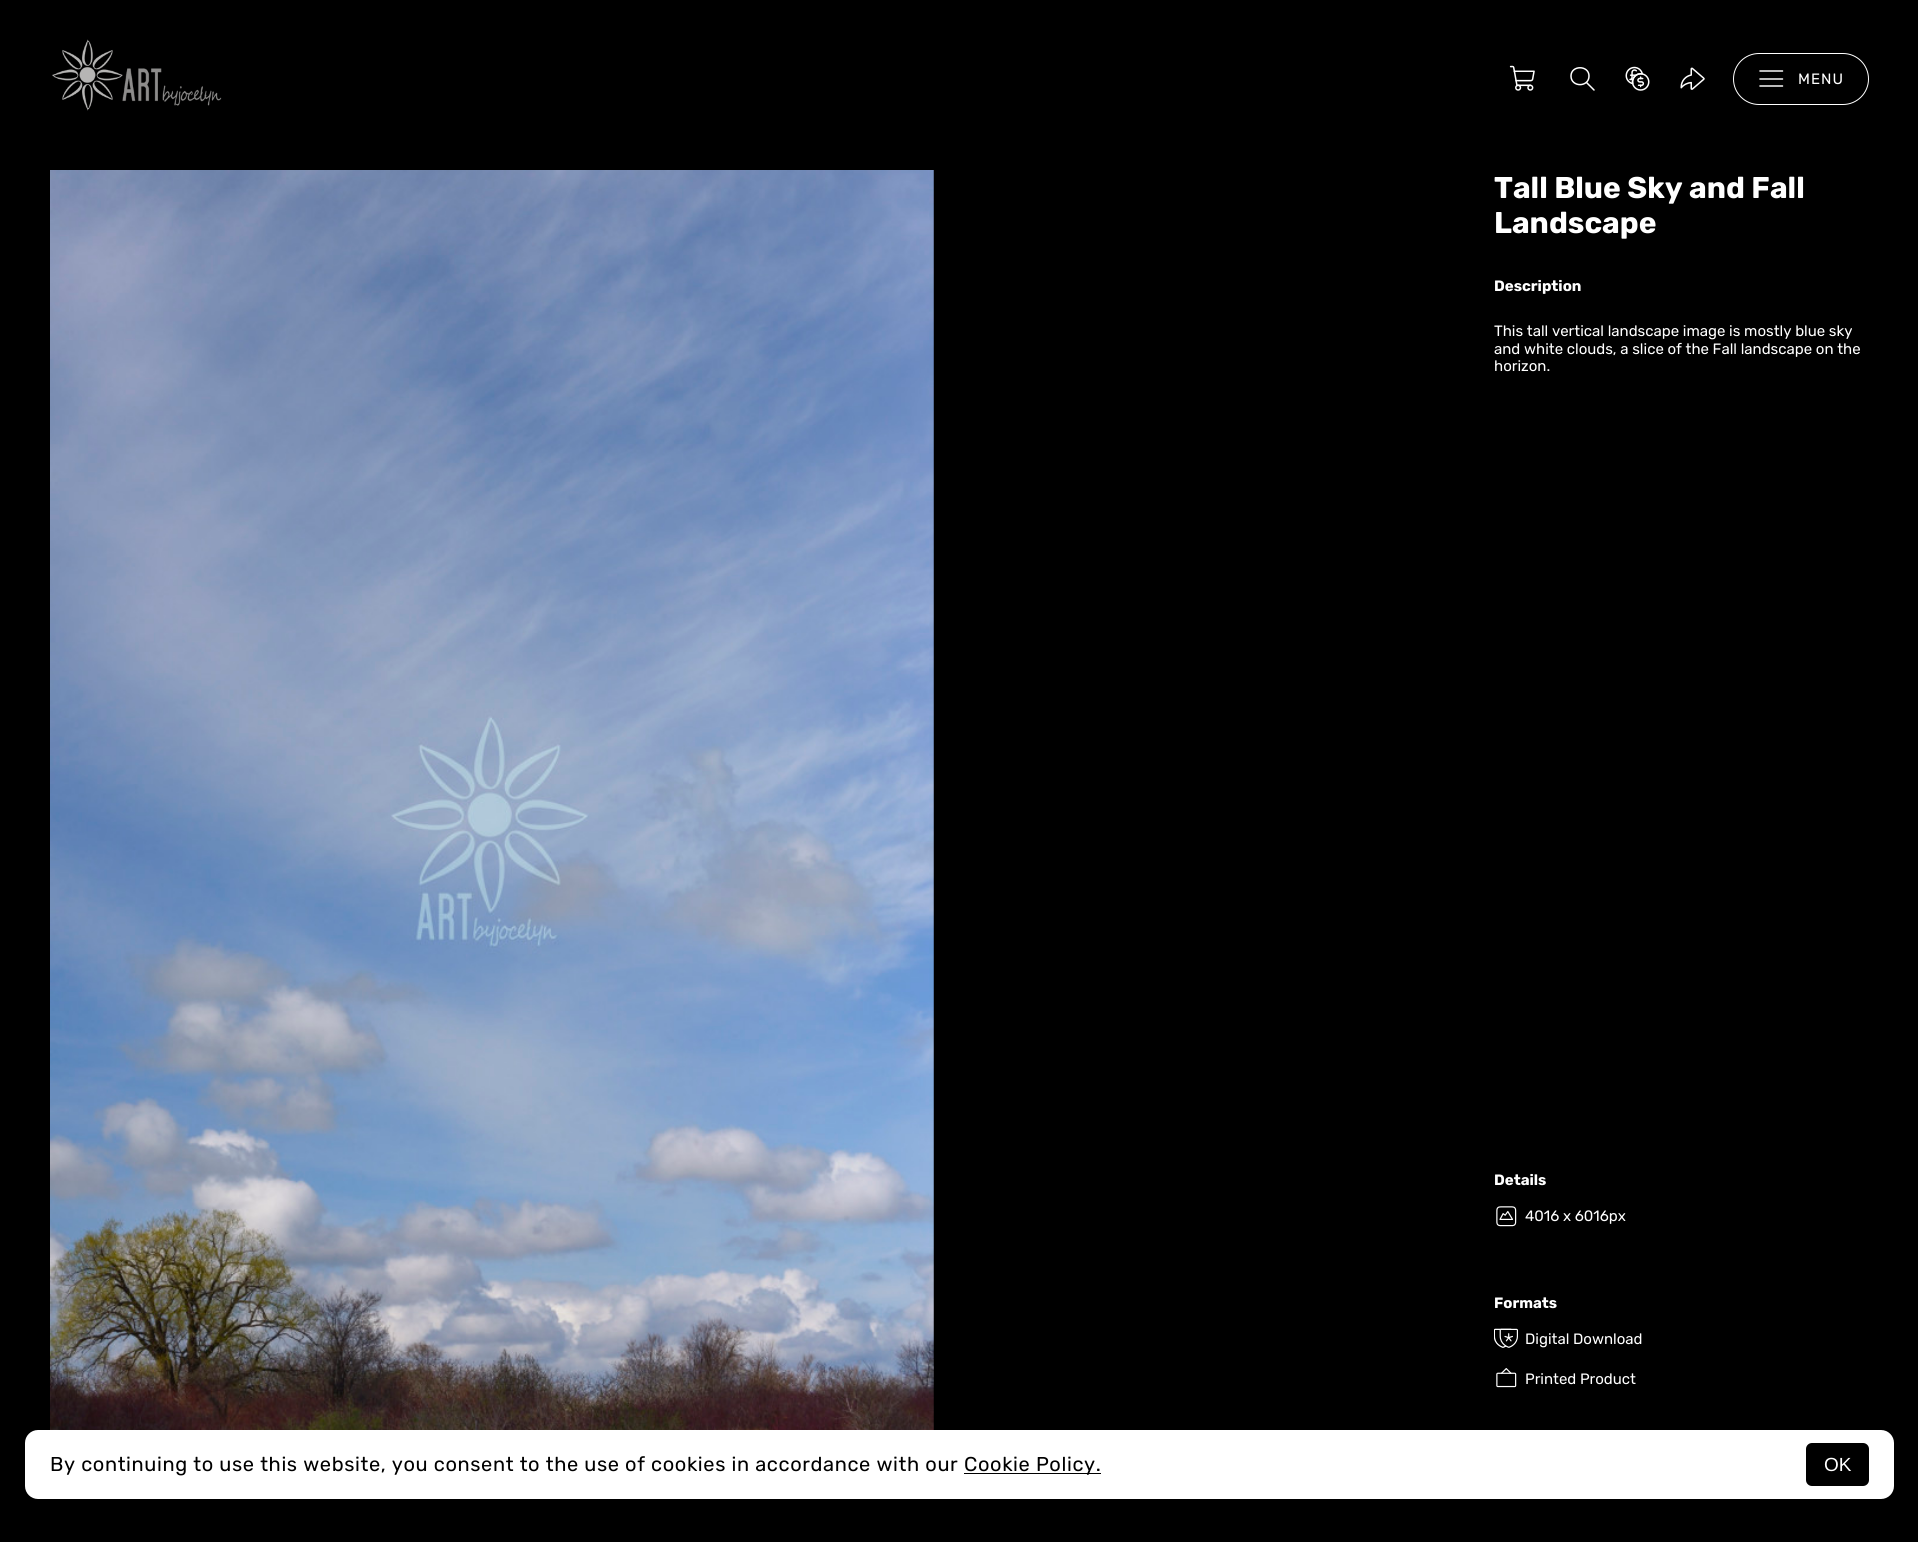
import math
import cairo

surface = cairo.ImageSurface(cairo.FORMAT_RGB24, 1918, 1542)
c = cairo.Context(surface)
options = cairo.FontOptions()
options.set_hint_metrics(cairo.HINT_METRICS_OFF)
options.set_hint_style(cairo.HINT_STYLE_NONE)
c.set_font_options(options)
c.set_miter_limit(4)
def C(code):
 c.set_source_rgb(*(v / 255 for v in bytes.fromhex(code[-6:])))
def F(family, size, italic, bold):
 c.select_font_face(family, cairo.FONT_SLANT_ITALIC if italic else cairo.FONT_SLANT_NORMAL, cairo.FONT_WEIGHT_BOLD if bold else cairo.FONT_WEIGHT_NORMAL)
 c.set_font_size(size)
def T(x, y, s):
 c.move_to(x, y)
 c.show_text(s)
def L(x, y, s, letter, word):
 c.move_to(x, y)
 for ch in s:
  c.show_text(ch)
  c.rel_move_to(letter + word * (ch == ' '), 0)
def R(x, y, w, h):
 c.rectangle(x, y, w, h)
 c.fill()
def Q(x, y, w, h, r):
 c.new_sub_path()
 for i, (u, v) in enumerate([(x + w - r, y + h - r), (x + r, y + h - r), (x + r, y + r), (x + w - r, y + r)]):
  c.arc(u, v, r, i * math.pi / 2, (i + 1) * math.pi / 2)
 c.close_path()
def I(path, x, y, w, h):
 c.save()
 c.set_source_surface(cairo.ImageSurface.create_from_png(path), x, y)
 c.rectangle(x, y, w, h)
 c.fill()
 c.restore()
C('000000')
c.paint()
I('1.png',52,39,170,72)
I('2.png',1509,65,26,26)
c.new_path()
c.move_to(1594,90)
c.line_to(1586.5,82.5)
c.move_to(1589,76)
c.curve_to(1589,87.5,1571,87.5,1571,76)
c.curve_to(1571,65,1589,65,1589,76)
c.close_path()
C('ffffff')
c.set_line_width(1.5)
c.set_line_cap(cairo.LINE_CAP_ROUND)
c.set_line_join(cairo.LINE_JOIN_ROUND)
c.stroke()
I('3.png',1625,66,25,25)
I('4.png',1680,67,25,23)
Q(1733.5,53.5,135,51,25.5)
c.set_line_width(1)
c.set_line_cap(cairo.LINE_CAP_BUTT)
c.set_line_join(cairo.LINE_JOIN_MITER)
c.stroke()
c.new_path()
c.move_to(1760,79)
c.line_to(1782.5,79)
c.move_to(1760,71)
c.line_to(1782.5,71)
c.move_to(1760,86)
c.line_to(1782.5,86)
c.set_line_width(1.5)
c.set_line_cap(cairo.LINE_CAP_ROUND)
c.set_line_join(cairo.LINE_JOIN_ROUND)
c.stroke()
F('Rubik',15,0,0)
L(1798,84,'MENU',1,0)
I('5.png',50,170,884,1260)
F('Rubik',30,0,1)
T(1494,198,'Tall Blue Sky and Fall')
T(1494,233,'Landscape')
F('Rubik',15,0,1)
T(1494,291,'Description')
F('Rubik',15,0,0)
T(1494,336,'This tall vertical landscape image is mostly blue sky')
T(1494,354,'and white clouds, a slice of the Fall landscape on the')
T(1494,371,'horizon.')
F('Rubik',15,0,1)
T(1494,1185,'Details')
I('6.png',1496,1206,21,21)
F('Rubik',15,0,0)
T(1525,1221,'4016 x 6016px')
F('Rubik',15,0,1)
T(1494,1308,'Formats')
I('7.png',1494,1328,24,20)
F('Rubik',15,0,0)
T(1525,1344,'Digital Download')
I('8.png',1496,1368,21,20)
T(1525,1384,'Printed Product')
Q(25,1430,1869,69,13)
c.fill()
F('Rubik',20,0,0)
C('000000')
L(50,1471,'By continuing to use this website, you consent to the use of cookies in accordance with our',.62,0)
R(964,1473,137,1)
L(964,1471,'Cookie Policy.',.62,0)
Q(1806,1443,63,43,6)
c.fill()
F('Liberation Sans',19,0,0)
C('ffffff')
T(1824,1471,'OK')
surface.write_to_png('o.png')
